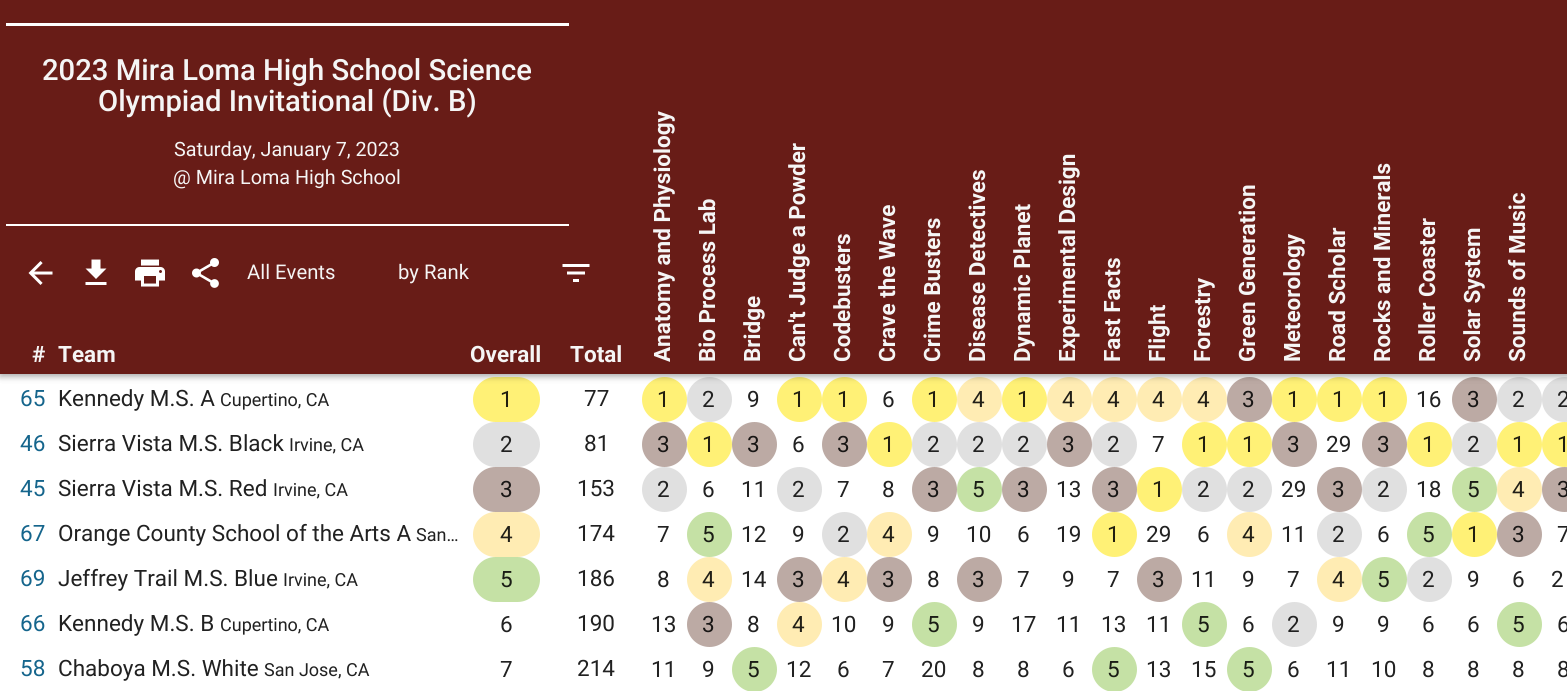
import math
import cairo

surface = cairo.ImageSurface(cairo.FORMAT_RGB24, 1567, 691)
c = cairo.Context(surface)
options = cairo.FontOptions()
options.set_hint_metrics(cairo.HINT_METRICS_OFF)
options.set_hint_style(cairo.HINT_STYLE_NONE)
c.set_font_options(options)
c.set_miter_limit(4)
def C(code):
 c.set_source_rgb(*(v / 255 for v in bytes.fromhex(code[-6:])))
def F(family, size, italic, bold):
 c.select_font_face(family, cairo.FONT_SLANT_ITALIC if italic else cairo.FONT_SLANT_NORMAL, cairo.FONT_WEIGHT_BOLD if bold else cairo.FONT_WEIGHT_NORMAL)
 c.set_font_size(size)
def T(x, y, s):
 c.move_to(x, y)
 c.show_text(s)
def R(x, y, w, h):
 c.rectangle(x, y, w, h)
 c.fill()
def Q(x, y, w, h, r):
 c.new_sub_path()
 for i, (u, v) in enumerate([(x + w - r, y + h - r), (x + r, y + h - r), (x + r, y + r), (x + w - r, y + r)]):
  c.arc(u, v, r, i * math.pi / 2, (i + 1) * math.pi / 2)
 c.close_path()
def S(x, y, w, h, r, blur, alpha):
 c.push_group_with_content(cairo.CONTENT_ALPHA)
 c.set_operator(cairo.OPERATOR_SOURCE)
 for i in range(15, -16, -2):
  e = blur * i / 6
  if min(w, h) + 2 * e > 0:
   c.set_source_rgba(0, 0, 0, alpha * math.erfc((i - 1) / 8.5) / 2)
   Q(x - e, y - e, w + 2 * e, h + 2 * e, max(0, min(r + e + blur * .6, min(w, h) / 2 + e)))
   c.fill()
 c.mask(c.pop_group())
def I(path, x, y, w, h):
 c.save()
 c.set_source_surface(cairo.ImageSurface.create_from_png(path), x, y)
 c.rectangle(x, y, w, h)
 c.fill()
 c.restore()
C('ffffff')
c.paint()
C('fff176')
Q(473,377,67,45,22.5)
c.fill()
c.arc(664.5,399.5,22.5,0,2 * math.pi)
c.fill()
C('e0e0e0')
c.arc(709.5,399.5,22.5,0,2 * math.pi)
c.fill()
C('fff176')
c.arc(799.5,399.5,22.5,0,2 * math.pi)
c.fill()
c.arc(844.5,399.5,22.5,0,2 * math.pi)
c.fill()
c.arc(934.5,399.5,22.5,0,2 * math.pi)
c.fill()
C('ffecb3')
c.arc(979.5,399.5,22.5,0,2 * math.pi)
c.fill()
C('fff176')
c.arc(1024.5,399.5,22.5,0,2 * math.pi)
c.fill()
C('ffecb3')
c.arc(1069.5,399.5,22.5,0,2 * math.pi)
c.fill()
c.arc(1114.5,399.5,22.5,0,2 * math.pi)
c.fill()
c.arc(1159.5,399.5,22.5,0,2 * math.pi)
c.fill()
c.arc(1204.5,399.5,22.5,0,2 * math.pi)
c.fill()
C('bcaaa4')
c.arc(1249.5,399.5,22.5,0,2 * math.pi)
c.fill()
C('fff176')
c.arc(1294.5,399.5,22.5,0,2 * math.pi)
c.fill()
c.arc(1339.5,399.5,22.5,0,2 * math.pi)
c.fill()
c.arc(1384.5,399.5,22.5,0,2 * math.pi)
c.fill()
C('bcaaa4')
c.arc(1474.5,399.5,22.5,0,2 * math.pi)
c.fill()
C('e0e0e0')
c.arc(1519.5,399.5,22.5,0,2 * math.pi)
c.fill()
c.arc(1564.5,399.5,22.5,0,2 * math.pi)
c.fill()
C('000000')
S(0,2,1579,373,0,4,.2)
S(0,5,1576,373,0,3,.12)
S(0,0,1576,374,0,3,.14)
C('681c17')
R(0,0,1567,374)
C('ffffff')
R(6,23,563,3)
R(6,224,563,2)
F('Roboto Medium',29.25,0,0)
C('f5f5f5')
T(42,80,'2023 Mira Loma High School Science')
T(98,111,'Olympiad Invitational (Div. B)')
F('Roboto',19.75,0,0)
T(174,156,'Saturday, January 7, 2023')
T(173,184,'@ Mira Loma High School')
I('1.png',28,261,25,24)
I('2.png',85,259,22,26)
I('3.png',135,259,30,28)
I('4.png',192,258,27,30)
F('Roboto',20.25,0,0)
T(247,279,'All Events')
T(398,279,'by Rank')
I('5.png',562,264,28,18)
F('Roboto',22.5,0,1)
T(32,362,'#')
T(58,362,'Team')
T(470,362,'Overall')
T(570,362,'Total')
c.save()
c.translate(670,362)
c.rotate(-90 * math.pi / 180)
T(0,0,'Anatomy and Physiology')
c.restore()
c.save()
c.translate(715,362)
c.rotate(-90 * math.pi / 180)
T(0,0,'Bio Process Lab')
c.restore()
c.save()
c.translate(760,362)
c.rotate(-90 * math.pi / 180)
T(0,0,'Bridge')
c.restore()
c.save()
c.translate(805,362)
c.rotate(-90 * math.pi / 180)
T(0,0,'Can\'t Judge a Powder')
c.restore()
c.save()
c.translate(850,362)
c.rotate(-90 * math.pi / 180)
T(0,0,'Codebusters')
c.restore()
c.save()
c.translate(895,362)
c.rotate(-90 * math.pi / 180)
T(0,0,'Crave the Wave')
c.restore()
c.save()
c.translate(940,362)
c.rotate(-90 * math.pi / 180)
T(0,0,'Crime Busters')
c.restore()
c.save()
c.translate(985,362)
c.rotate(-90 * math.pi / 180)
T(0,0,'Disease Detectives')
c.restore()
c.save()
c.translate(1030,362)
c.rotate(-90 * math.pi / 180)
T(0,0,'Dynamic Planet')
c.restore()
c.save()
c.translate(1075,362)
c.rotate(-90 * math.pi / 180)
T(0,0,'Experimental Design')
c.restore()
c.save()
c.translate(1120,362)
c.rotate(-90 * math.pi / 180)
T(0,0,'Fast Facts')
c.restore()
c.save()
c.translate(1165,362)
c.rotate(-90 * math.pi / 180)
T(0,0,'Flight')
c.restore()
c.save()
c.translate(1210,362)
c.rotate(-90 * math.pi / 180)
T(0,0,'Forestry')
c.restore()
c.save()
c.translate(1255,362)
c.rotate(-90 * math.pi / 180)
T(0,0,'Green Generation')
c.restore()
c.save()
c.translate(1300,362)
c.rotate(-90 * math.pi / 180)
T(0,0,'Meteorology')
c.restore()
c.save()
c.translate(1345,362)
c.rotate(-90 * math.pi / 180)
T(0,0,'Road Scholar')
c.restore()
c.save()
c.translate(1390,362)
c.rotate(-90 * math.pi / 180)
T(0,0,'Rocks and Minerals')
c.restore()
c.save()
c.translate(1435,362)
c.rotate(-90 * math.pi / 180)
T(0,0,'Roller Coaster')
c.restore()
c.save()
c.translate(1480,362)
c.rotate(-90 * math.pi / 180)
T(0,0,'Solar System')
c.restore()
c.save()
c.translate(1525,362)
c.rotate(-90 * math.pi / 180)
T(0,0,'Sounds of Music')
c.restore()
F('Roboto',22.5,0,0)
C('15658c')
T(20,406,'65')
C('212121')
T(58,406,'Kennedy M.S. A')
F('Roboto',18,0,0)
T(220,406,'Cupertino, CA')
F('Roboto',22.5,0,0)
C('211f0f')
T(500,407,'1')
C('212121')
T(584,406,'77')
C('211f0f')
T(657,407,'1')
C('212121')
T(702,407,'2')
T(747,407,'9')
C('211f0f')
T(792,407,'1')
T(837,407,'1')
C('212121')
T(882,407,'6')
C('211f0f')
T(927,407,'1')
C('211f17')
T(972,407,'4')
C('211f0f')
T(1017,407,'1')
C('211f17')
T(1062,407,'4')
T(1107,407,'4')
T(1152,407,'4')
T(1197,407,'4')
C('181615')
T(1242,407,'3')
C('211f0f')
T(1287,407,'1')
T(1332,407,'1')
T(1377,407,'1')
C('212121')
T(1416,407,'16')
C('181615')
T(1467,407,'3')
C('212121')
T(1512,407,'2')
T(1557,407,'2')
C('15658c')
T(20,451,'46')
C('212121')
T(58,451,'Sierra Vista M.S. Black')
F('Roboto',18,0,0)
T(289,451,'Irvine, CA')
C('e0e0e0')
Q(473,422,67,45,22.5)
c.fill()
F('Roboto',22.5,0,0)
C('212121')
T(500,452,'2')
T(584,451,'81')
C('bcaaa4')
c.new_path()
c.arc(664.5,444.5,22.5,0,2 * math.pi)
c.fill()
C('181615')
T(657,452,'3')
C('fff176')
c.new_path()
c.arc(709.5,444.5,22.5,0,2 * math.pi)
c.fill()
C('211f0f')
T(702,452,'1')
C('bcaaa4')
c.new_path()
c.arc(754.5,444.5,22.5,0,2 * math.pi)
c.fill()
C('181615')
T(747,452,'3')
C('212121')
T(792,452,'6')
C('bcaaa4')
c.new_path()
c.arc(844.5,444.5,22.5,0,2 * math.pi)
c.fill()
C('181615')
T(837,452,'3')
C('fff176')
c.new_path()
c.arc(889.5,444.5,22.5,0,2 * math.pi)
c.fill()
C('211f0f')
T(882,452,'1')
C('e0e0e0')
c.new_path()
c.arc(934.5,444.5,22.5,0,2 * math.pi)
c.fill()
C('212121')
T(927,452,'2')
C('e0e0e0')
c.new_path()
c.arc(979.5,444.5,22.5,0,2 * math.pi)
c.fill()
C('212121')
T(972,452,'2')
C('e0e0e0')
c.new_path()
c.arc(1024.5,444.5,22.5,0,2 * math.pi)
c.fill()
C('212121')
T(1017,452,'2')
C('bcaaa4')
c.new_path()
c.arc(1069.5,444.5,22.5,0,2 * math.pi)
c.fill()
C('181615')
T(1062,452,'3')
C('e0e0e0')
c.new_path()
c.arc(1114.5,444.5,22.5,0,2 * math.pi)
c.fill()
C('212121')
T(1107,452,'2')
T(1152,452,'7')
C('fff176')
c.new_path()
c.arc(1204.5,444.5,22.5,0,2 * math.pi)
c.fill()
C('211f0f')
T(1197,452,'1')
C('fff176')
c.new_path()
c.arc(1249.5,444.5,22.5,0,2 * math.pi)
c.fill()
C('211f0f')
T(1242,452,'1')
C('bcaaa4')
c.new_path()
c.arc(1294.5,444.5,22.5,0,2 * math.pi)
c.fill()
C('181615')
T(1287,452,'3')
C('212121')
T(1326,452,'29')
C('bcaaa4')
c.new_path()
c.arc(1384.5,444.5,22.5,0,2 * math.pi)
c.fill()
C('181615')
T(1377,452,'3')
C('fff176')
c.new_path()
c.arc(1429.5,444.5,22.5,0,2 * math.pi)
c.fill()
C('211f0f')
T(1422,452,'1')
C('e0e0e0')
c.new_path()
c.arc(1474.5,444.5,22.5,0,2 * math.pi)
c.fill()
C('212121')
T(1467,452,'2')
C('fff176')
c.new_path()
c.arc(1519.5,444.5,22.5,0,2 * math.pi)
c.fill()
C('211f0f')
T(1512,452,'1')
C('fff176')
c.new_path()
c.arc(1564.5,444.5,22.5,0,2 * math.pi)
c.fill()
C('211f0f')
T(1557,452,'1')
C('15658c')
T(20,496,'45')
C('212121')
T(58,496,'Sierra Vista M.S. Red')
F('Roboto',18,0,0)
T(273,496,'Irvine, CA')
C('bcaaa4')
Q(473,467,67,45,22.5)
c.fill()
F('Roboto',22.5,0,0)
C('181615')
T(500,497,'3')
C('212121')
T(577,496,'153')
C('e0e0e0')
c.new_path()
c.arc(664.5,489.5,22.5,0,2 * math.pi)
c.fill()
C('212121')
T(657,497,'2')
T(702,497,'6')
T(741,497,'11')
C('e0e0e0')
c.new_path()
c.arc(799.5,489.5,22.5,0,2 * math.pi)
c.fill()
C('212121')
T(792,497,'2')
T(837,497,'7')
T(882,497,'8')
C('bcaaa4')
c.new_path()
c.arc(934.5,489.5,22.5,0,2 * math.pi)
c.fill()
C('181615')
T(927,497,'3')
C('c5e1a5')
c.new_path()
c.arc(979.5,489.5,22.5,0,2 * math.pi)
c.fill()
C('1a1d15')
T(972,497,'5')
C('bcaaa4')
c.new_path()
c.arc(1024.5,489.5,22.5,0,2 * math.pi)
c.fill()
C('181615')
T(1017,497,'3')
C('212121')
T(1056,497,'13')
C('bcaaa4')
c.new_path()
c.arc(1114.5,489.5,22.5,0,2 * math.pi)
c.fill()
C('181615')
T(1107,497,'3')
C('fff176')
c.new_path()
c.arc(1159.5,489.5,22.5,0,2 * math.pi)
c.fill()
C('211f0f')
T(1152,497,'1')
C('e0e0e0')
c.new_path()
c.arc(1204.5,489.5,22.5,0,2 * math.pi)
c.fill()
C('212121')
T(1197,497,'2')
C('e0e0e0')
c.new_path()
c.arc(1249.5,489.5,22.5,0,2 * math.pi)
c.fill()
C('212121')
T(1242,497,'2')
T(1281,497,'29')
C('bcaaa4')
c.new_path()
c.arc(1339.5,489.5,22.5,0,2 * math.pi)
c.fill()
C('181615')
T(1332,497,'3')
C('e0e0e0')
c.new_path()
c.arc(1384.5,489.5,22.5,0,2 * math.pi)
c.fill()
C('212121')
T(1377,497,'2')
T(1416,497,'18')
C('c5e1a5')
c.new_path()
c.arc(1474.5,489.5,22.5,0,2 * math.pi)
c.fill()
C('1a1d15')
T(1467,497,'5')
C('ffecb3')
c.new_path()
c.arc(1519.5,489.5,22.5,0,2 * math.pi)
c.fill()
C('211f17')
T(1512,497,'4')
C('bcaaa4')
c.new_path()
c.arc(1564.5,489.5,22.5,0,2 * math.pi)
c.fill()
C('181615')
T(1557,497,'3')
C('15658c')
T(20,541,'67')
C('212121')
T(58,541,'Orange County School of the Arts A')
F('Roboto',18,0,0)
T(416,541,'San…')
C('ffecb3')
Q(473,512,67,45,22.5)
c.fill()
F('Roboto',22.5,0,0)
C('211f17')
T(500,542,'4')
C('212121')
T(577,541,'174')
T(657,542,'7')
C('c5e1a5')
c.new_path()
c.arc(709.5,534.5,22.5,0,2 * math.pi)
c.fill()
C('1a1d15')
T(702,542,'5')
C('212121')
T(741,542,'12')
T(792,542,'9')
C('e0e0e0')
c.new_path()
c.arc(844.5,534.5,22.5,0,2 * math.pi)
c.fill()
C('212121')
T(837,542,'2')
C('ffecb3')
c.new_path()
c.arc(889.5,534.5,22.5,0,2 * math.pi)
c.fill()
C('211f17')
T(882,542,'4')
C('212121')
T(927,542,'9')
T(966,542,'10')
T(1017,542,'6')
T(1056,542,'19')
C('fff176')
c.new_path()
c.arc(1114.5,534.5,22.5,0,2 * math.pi)
c.fill()
C('211f0f')
T(1107,542,'1')
C('212121')
T(1146,542,'29')
T(1197,542,'6')
C('ffecb3')
c.new_path()
c.arc(1249.5,534.5,22.5,0,2 * math.pi)
c.fill()
C('211f17')
T(1242,542,'4')
C('212121')
T(1281,542,'11')
C('e0e0e0')
c.new_path()
c.arc(1339.5,534.5,22.5,0,2 * math.pi)
c.fill()
C('212121')
T(1332,542,'2')
T(1377,542,'6')
C('c5e1a5')
c.new_path()
c.arc(1429.5,534.5,22.5,0,2 * math.pi)
c.fill()
C('1a1d15')
T(1422,542,'5')
C('fff176')
c.new_path()
c.arc(1474.5,534.5,22.5,0,2 * math.pi)
c.fill()
C('211f0f')
T(1467,542,'1')
C('bcaaa4')
c.new_path()
c.arc(1519.5,534.5,22.5,0,2 * math.pi)
c.fill()
C('181615')
T(1512,542,'3')
C('212121')
T(1557,542,'7')
C('15658c')
T(20,586,'69')
C('212121')
T(58,586,'Jeffrey Trail M.S. Blue')
F('Roboto',18,0,0)
T(283,586,'Irvine, CA')
C('c5e1a5')
Q(473,557,67,45,22.5)
c.fill()
F('Roboto',22.5,0,0)
C('1a1d15')
T(500,587,'5')
C('212121')
T(577,586,'186')
T(657,587,'8')
C('ffecb3')
c.new_path()
c.arc(709.5,579.5,22.5,0,2 * math.pi)
c.fill()
C('211f17')
T(702,587,'4')
C('212121')
T(741,587,'14')
C('bcaaa4')
c.new_path()
c.arc(799.5,579.5,22.5,0,2 * math.pi)
c.fill()
C('181615')
T(792,587,'3')
C('ffecb3')
c.new_path()
c.arc(844.5,579.5,22.5,0,2 * math.pi)
c.fill()
C('211f17')
T(837,587,'4')
C('bcaaa4')
c.new_path()
c.arc(889.5,579.5,22.5,0,2 * math.pi)
c.fill()
C('181615')
T(882,587,'3')
C('212121')
T(927,587,'8')
C('bcaaa4')
c.new_path()
c.arc(979.5,579.5,22.5,0,2 * math.pi)
c.fill()
C('181615')
T(972,587,'3')
C('212121')
T(1017,587,'7')
T(1062,587,'9')
T(1107,587,'7')
C('bcaaa4')
c.new_path()
c.arc(1159.5,579.5,22.5,0,2 * math.pi)
c.fill()
C('181615')
T(1152,587,'3')
C('212121')
T(1191,587,'11')
T(1242,587,'9')
T(1287,587,'7')
C('ffecb3')
c.new_path()
c.arc(1339.5,579.5,22.5,0,2 * math.pi)
c.fill()
C('211f17')
T(1332,587,'4')
C('c5e1a5')
c.new_path()
c.arc(1384.5,579.5,22.5,0,2 * math.pi)
c.fill()
C('1a1d15')
T(1377,587,'5')
C('e0e0e0')
c.new_path()
c.arc(1429.5,579.5,22.5,0,2 * math.pi)
c.fill()
C('212121')
T(1422,587,'2')
T(1467,587,'9')
T(1512,587,'6')
T(1551,587,'2')
C('15658c')
T(20,631,'66')
C('212121')
T(58,631,'Kennedy M.S. B')
F('Roboto',18,0,0)
T(220,631,'Cupertino, CA')
F('Roboto',22.5,0,0)
T(500,632,'6')
T(577,631,'190')
T(651,632,'13')
C('bcaaa4')
c.new_path()
c.arc(709.5,624.5,22.5,0,2 * math.pi)
c.fill()
C('181615')
T(702,632,'3')
C('212121')
T(747,632,'8')
C('ffecb3')
c.new_path()
c.arc(799.5,624.5,22.5,0,2 * math.pi)
c.fill()
C('211f17')
T(792,632,'4')
C('212121')
T(831,632,'10')
T(882,632,'9')
C('c5e1a5')
c.new_path()
c.arc(934.5,624.5,22.5,0,2 * math.pi)
c.fill()
C('1a1d15')
T(927,632,'5')
C('212121')
T(972,632,'9')
T(1011,632,'17')
T(1056,632,'11')
T(1101,632,'13')
T(1146,632,'11')
C('c5e1a5')
c.new_path()
c.arc(1204.5,624.5,22.5,0,2 * math.pi)
c.fill()
C('1a1d15')
T(1197,632,'5')
C('212121')
T(1242,632,'6')
C('e0e0e0')
c.new_path()
c.arc(1294.5,624.5,22.5,0,2 * math.pi)
c.fill()
C('212121')
T(1287,632,'2')
T(1332,632,'9')
T(1377,632,'9')
T(1422,632,'6')
T(1467,632,'6')
C('c5e1a5')
c.new_path()
c.arc(1519.5,624.5,22.5,0,2 * math.pi)
c.fill()
C('1a1d15')
T(1512,632,'5')
C('212121')
T(1557,632,'6')
C('15658c')
T(20,676,'58')
C('212121')
T(58,676,'Chaboya M.S. White')
F('Roboto',18,0,0)
T(264,676,'San Jose, CA')
F('Roboto',22.5,0,0)
T(500,677,'7')
T(577,676,'214')
T(651,677,'11')
T(702,677,'9')
C('c5e1a5')
c.new_path()
c.arc(754.5,669.5,22.5,0,2 * math.pi)
c.fill()
C('1a1d15')
T(747,677,'5')
C('212121')
T(786,677,'12')
T(837,677,'6')
T(882,677,'7')
T(921,677,'20')
T(972,677,'8')
T(1017,677,'8')
T(1062,677,'6')
C('c5e1a5')
c.new_path()
c.arc(1114.5,669.5,22.5,0,2 * math.pi)
c.fill()
C('1a1d15')
T(1107,677,'5')
C('212121')
T(1146,677,'13')
T(1191,677,'15')
C('c5e1a5')
c.new_path()
c.arc(1249.5,669.5,22.5,0,2 * math.pi)
c.fill()
C('1a1d15')
T(1242,677,'5')
C('212121')
T(1287,677,'6')
T(1326,677,'11')
T(1371,677,'10')
T(1422,677,'8')
T(1467,677,'8')
T(1512,677,'8')
T(1557,677,'8')
surface.write_to_png('o.png')
